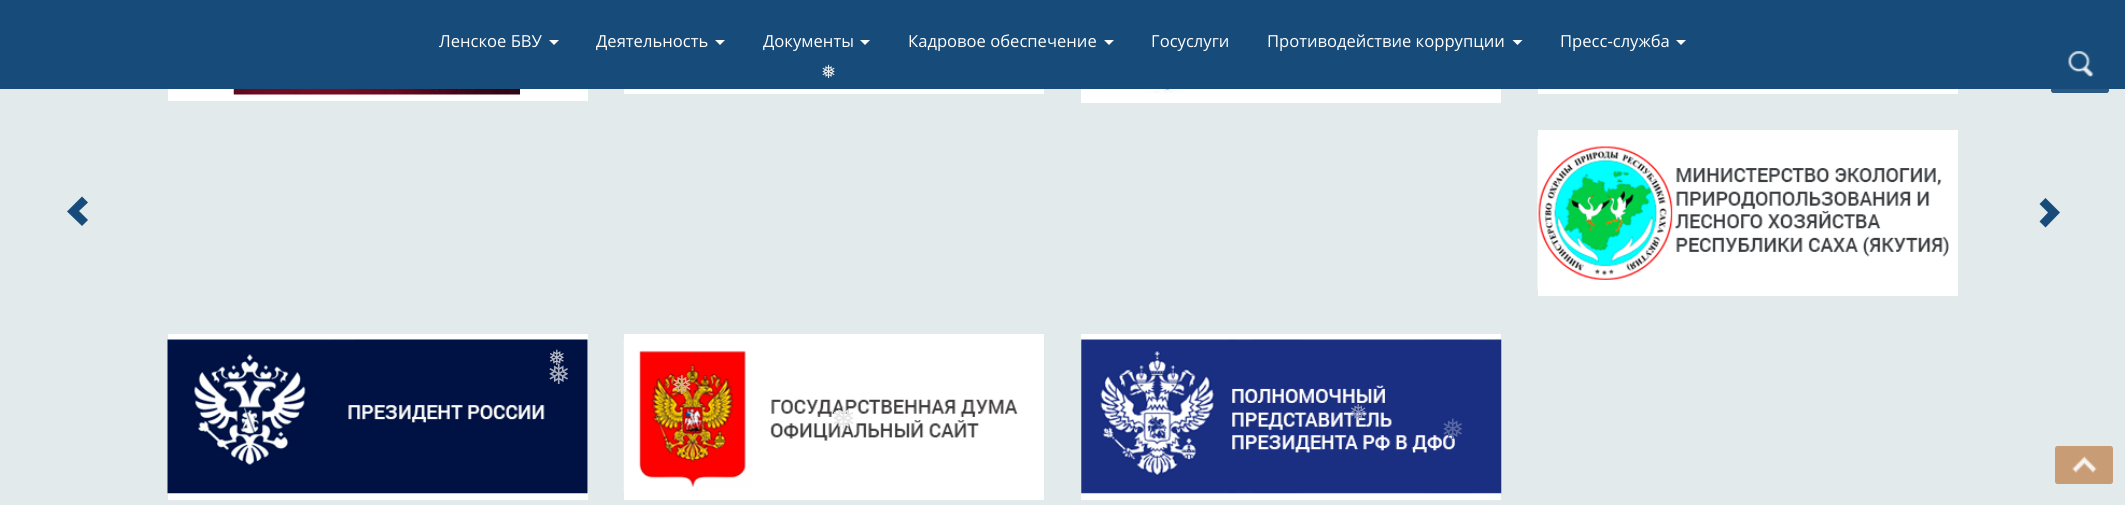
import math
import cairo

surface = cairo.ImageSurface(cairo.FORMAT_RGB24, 2125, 505)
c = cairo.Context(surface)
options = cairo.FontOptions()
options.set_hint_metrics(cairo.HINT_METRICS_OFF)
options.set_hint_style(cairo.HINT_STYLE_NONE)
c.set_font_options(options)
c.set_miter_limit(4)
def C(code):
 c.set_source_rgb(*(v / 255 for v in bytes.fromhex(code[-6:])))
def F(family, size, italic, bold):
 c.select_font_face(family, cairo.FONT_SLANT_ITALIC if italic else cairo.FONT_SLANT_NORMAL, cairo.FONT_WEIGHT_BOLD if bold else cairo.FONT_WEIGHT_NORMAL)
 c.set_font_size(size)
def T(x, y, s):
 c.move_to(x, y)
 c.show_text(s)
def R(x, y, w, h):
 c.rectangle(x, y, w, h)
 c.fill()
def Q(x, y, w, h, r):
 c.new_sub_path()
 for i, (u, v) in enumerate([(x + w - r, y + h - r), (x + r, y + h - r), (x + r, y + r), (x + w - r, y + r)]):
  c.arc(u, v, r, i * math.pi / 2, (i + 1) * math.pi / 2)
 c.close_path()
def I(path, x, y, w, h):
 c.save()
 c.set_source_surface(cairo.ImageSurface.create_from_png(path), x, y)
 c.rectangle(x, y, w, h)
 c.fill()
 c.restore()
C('e2eaec')
c.paint()
C('174c7a')
R(0,0,2125,89)
F('Open Sans',16.6,0,0)
C('ffffff')
T(439,47,'Ленское БВУ')
c.new_path()
c.move_to(549,40)
c.line_to(559,40)
c.line_to(554,45)
c.close_path()
c.fill()
T(596,47,'Деятельность')
c.new_path()
c.move_to(715,40)
c.line_to(725,40)
c.line_to(720,45)
c.close_path()
c.fill()
T(763,47,'Документы')
c.new_path()
c.move_to(860,40)
c.line_to(870,40)
c.line_to(865,45)
c.close_path()
c.fill()
T(908,47,'Кадровое обеспечение')
c.new_path()
c.move_to(1104,40)
c.line_to(1114,40)
c.line_to(1109,45)
c.close_path()
c.fill()
T(1151,47,'Госуслуги')
T(1267,47,'Противодействие коррупции')
c.new_path()
c.move_to(1512.5,40)
c.line_to(1522.5,40)
c.line_to(1517.5,45)
c.close_path()
c.fill()
T(1560,47,'Пресс-служба')
c.new_path()
c.move_to(1676,40)
c.line_to(1686,40)
c.line_to(1681,45)
c.close_path()
c.fill()
C('174c7a')
c.new_path()
c.move_to(67,211.5)
c.line_to(82,226)
c.line_to(88,220)
c.line_to(79,211)
c.line_to(88,202.5)
c.line_to(82,196.5)
c.close_path()
c.fill()
C('ffffff')
R(168,89,420,12)
I('1.png',233,89,287,6)
R(624,89,420,5)
R(1081,89,420,14)
I('2.png',1103,89,376,5)
R(1538,89,420,5)
R(1538,130,420,166)
I('3.png',1537,136,412,154)
R(168,334,420,166)
I('4.png',167,339,421,155)
R(624,334,420,166)
I('5.png',623,340,395,153)
R(1081,334,420,166)
I('6.png',1081,339,421,155)
C('174c7a')
c.new_path()
c.move_to(2039.5,221.5)
c.line_to(2048,212.5)
c.line_to(2039.5,204)
c.line_to(2045.5,198)
c.line_to(2060,212.5)
c.line_to(2045.5,227.5)
c.close_path()
c.fill()
c.set_source_rgba(0.09,0.298,0.478,0.9)
Q(2051,35,58,58,2.5)
c.fill()
I('7.png',2068,51,26,26)
C('c89c75')
Q(2055,446,58,38,2.5)
c.fill()
I('8.png',2072,456,25,17)
F('DejaVu Sans',18,0,0)
C('efefef')
T(821,78,'❅')
F('DejaVu Sans',21,0,0)
C('bdc1cb')
T(548,365,'❅')
F('DejaVu Sans',28,0,0)
C('a7adbc')
T(547,384,'❅')
F('DejaVu Sans',26,0,0)
C('dcaf95')
T(671,394,'❅')
F('DejaVu Sans',30,0,0)
C('e7e7e7')
T(831,429,'❅')
F('DejaVu Sans',22,0,0)
C('8892bb')
T(1349,420,'❅')
F('DejaVu Sans',28,0,0)
C('5867a2')
T(1441,439,'❅')
surface.write_to_png('o.png')
